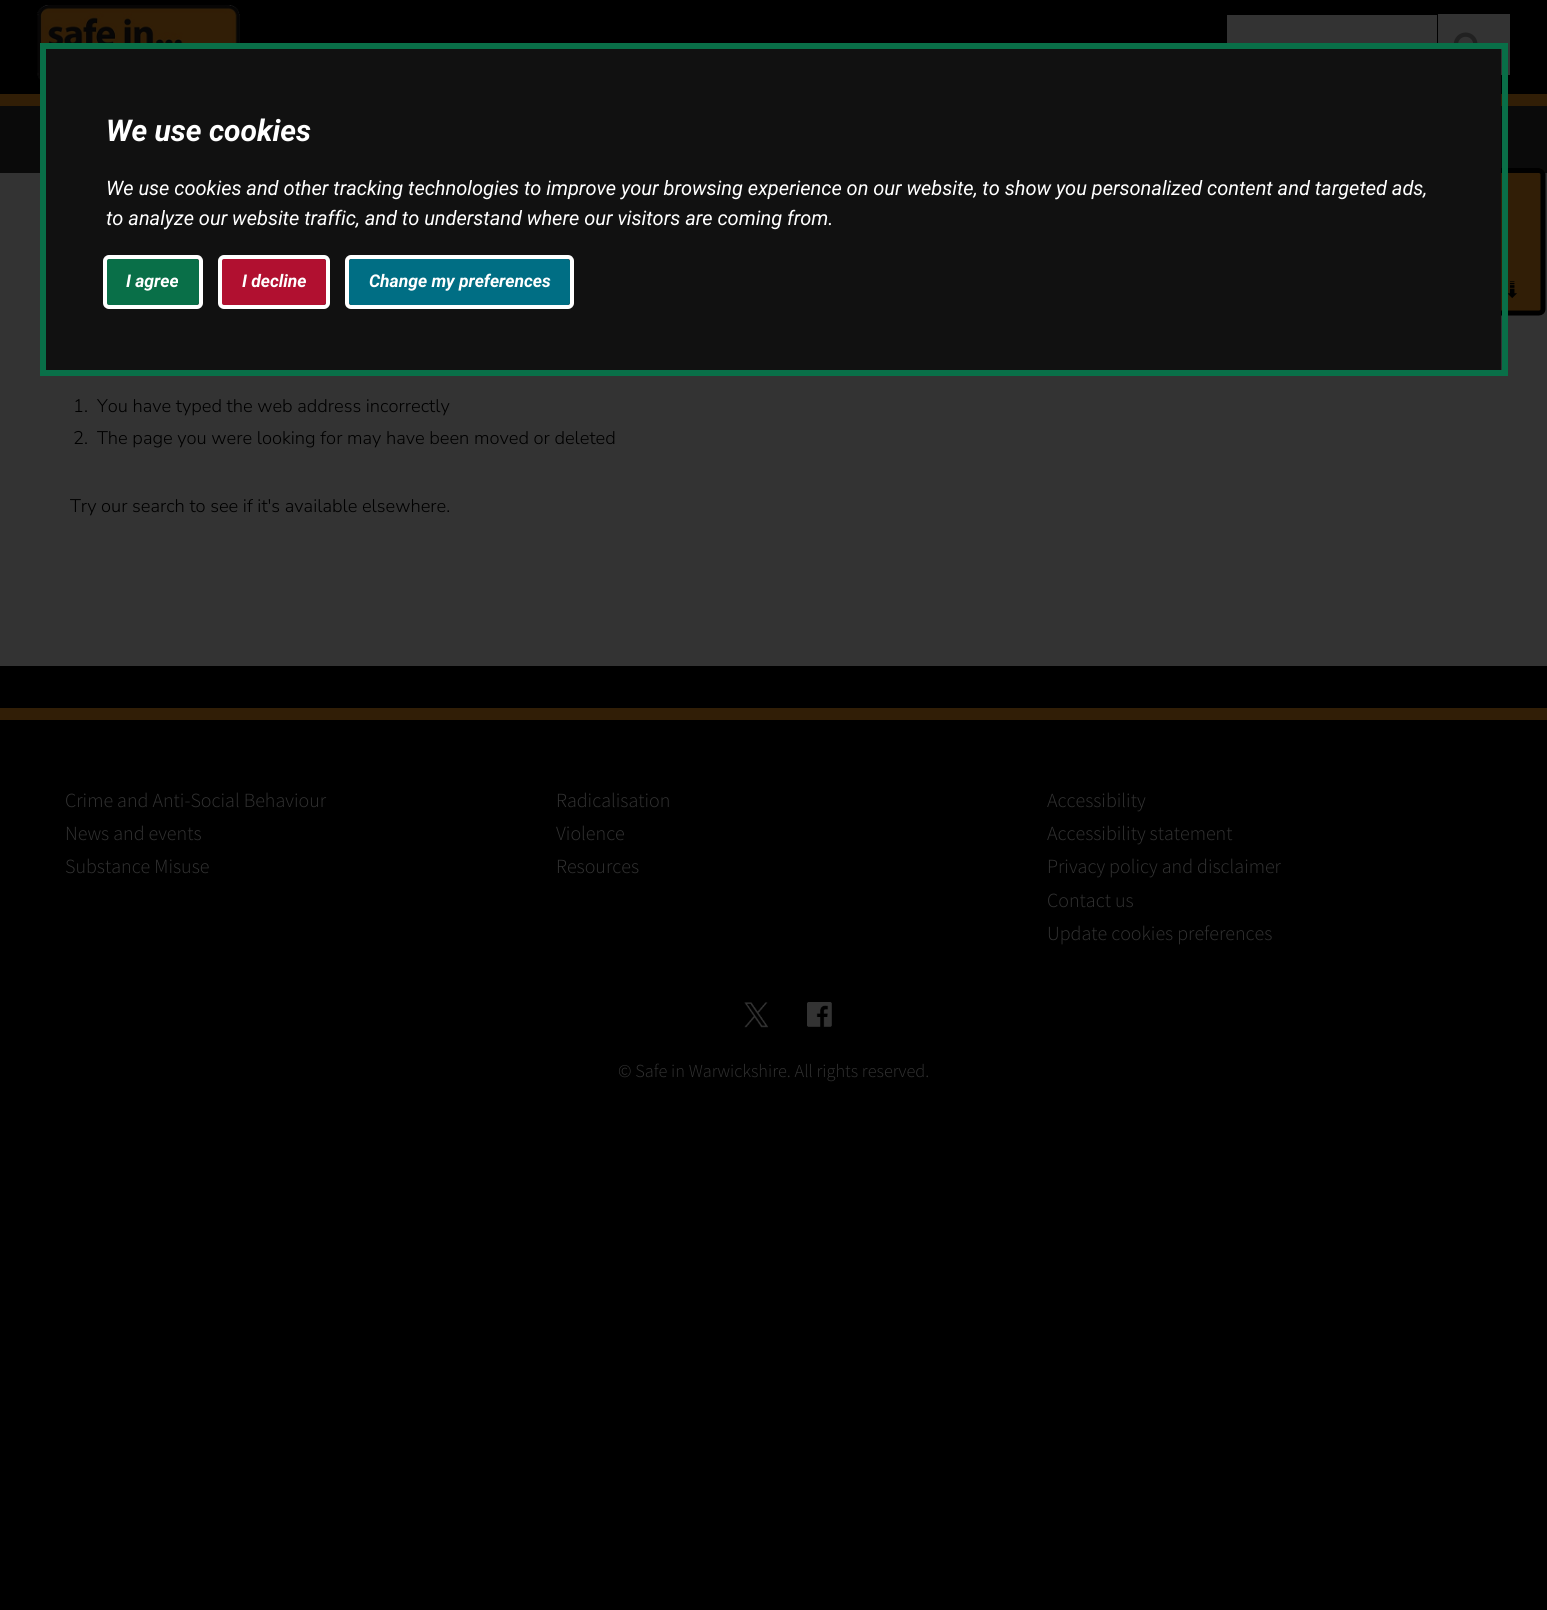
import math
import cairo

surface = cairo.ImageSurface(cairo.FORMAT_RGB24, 1547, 1610)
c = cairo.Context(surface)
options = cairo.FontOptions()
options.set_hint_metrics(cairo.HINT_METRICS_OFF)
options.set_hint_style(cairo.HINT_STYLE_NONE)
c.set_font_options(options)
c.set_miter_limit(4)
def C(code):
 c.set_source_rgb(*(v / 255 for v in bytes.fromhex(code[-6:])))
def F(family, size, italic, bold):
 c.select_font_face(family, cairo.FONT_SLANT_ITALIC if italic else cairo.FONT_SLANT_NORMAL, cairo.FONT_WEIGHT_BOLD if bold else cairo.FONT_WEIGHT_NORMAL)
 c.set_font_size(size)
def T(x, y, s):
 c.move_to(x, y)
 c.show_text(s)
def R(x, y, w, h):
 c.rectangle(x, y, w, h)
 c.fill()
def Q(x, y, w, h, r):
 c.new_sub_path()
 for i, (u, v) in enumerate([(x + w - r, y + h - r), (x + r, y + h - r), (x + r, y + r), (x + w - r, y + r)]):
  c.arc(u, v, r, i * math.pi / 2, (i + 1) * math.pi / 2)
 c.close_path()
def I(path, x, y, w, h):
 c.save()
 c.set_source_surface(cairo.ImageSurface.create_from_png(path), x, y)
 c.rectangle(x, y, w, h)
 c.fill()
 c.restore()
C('000000')
c.paint()
C('311e06')
R(0,94,1547,12)
I('1.png',37,5,203,75)
C('333333')
R(1227,15,210,28)
R(1438,14,72,61)
I('2.png',1453,32,25,11)
C('0a0a0a')
R(0,106,1547,67)
C('333333')
R(0,173,1547,493)
C('311e06')
c.new_path()
c.move_to(1545,174)
c.line_to(1545,309)
c.curve_to(1545,313,1542,315,1539,315)
c.line_to(1487,315)
c.curve_to(1483,315,1480,313,1480,309)
c.line_to(1480,174)
c.curve_to(1480,171,1483,168,1487,168)
c.line_to(1539,168)
c.curve_to(1542,168,1545,171,1545,174)
c.close_path()
c.fill()
c.new_path()
c.move_to(1543,174.5)
c.line_to(1543,309)
c.curve_to(1543,311.5,1541,313,1539,313)
c.line_to(1486.5,313)
c.curve_to(1484.5,313,1483,311.5,1483,309)
c.line_to(1483,174.5)
c.curve_to(1483,172.5,1484.5,170.5,1486.5,170.5)
c.line_to(1539,170.5)
c.curve_to(1541,170.5,1543,172.5,1543,174.5)
c.close_path()
C('000000')
c.set_line_width(5)
c.stroke()
C('111111')
R(46,49,1455,321)
C('096f48')
Q(106,259,93,46,2.5)
c.fill()
Q(105,257,96,50,4)
C('ffffff')
c.set_line_width(4)
c.stroke()
C('b11030')
Q(221,259,105,46,2.5)
c.fill()
Q(220,257,108,50,4)
C('ffffff')
c.stroke()
C('006e84')
Q(349,259,221,46,2.5)
c.fill()
Q(347,257,225,50,4)
C('ffffff')
c.stroke()
F('DejaVu Sans',23,0,0)
C('000000')
c.save()
c.translate(1505,280)
c.rotate(90 * math.pi / 180)
T(0,0,'➟')
c.restore()
c.rectangle(43,46,1462,327)
C('096f48')
c.set_line_width(6)
c.stroke()
F('Roboto',30,1,1)
C('ffffff')
T(106,141,'We use cookies')
F('Roboto',20,1,0)
T(106,195,'We use cookies and other tracking technologies to improve your browsing experience on our website, to show you personalized content and targeted ads,')
T(106,225,'to analyze our website traffic, and to understand where our visitors are coming from.')
F('Roboto',17.5,1,1)
T(126,287,'I agree')
T(242,287,'I decline')
T(369,287,'Change my preferences')
F('Nunito Sans Light',18.3,0,0)
C('000000')
T(73,412,'1.')
T(97,412,'You have typed the web address incorrectly')
T(73,444,'2.')
T(97,444,'The page you were looking for may have been moved or deleted')
T(70,512,'Try our search to see if it\'s available elsewhere.')
C('311e06')
R(0,708,1547,12)
F('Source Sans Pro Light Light',20,0,0)
C('333333')
T(65,807,'Crime and Anti-Social Behaviour')
T(65,840,'News and events')
T(65,873,'Substance Misuse')
T(556,807,'Radicalisation')
T(556,840,'Violence')
T(556,873,'Resources')
T(1047,807,'Accessibility')
T(1047,840,'Accessibility statement')
T(1047,873,'Privacy policy and disclaimer')
T(1047,907,'Contact us')
T(1047,940,'Update cookies preferences')
I('3.png',744,1002,25,26)
I('4.png',807,1002,25,25)
F('Source Sans Pro Light Light',18.3,0,0)
T(618,1077,'© Safe in Warwickshire. All rights reserved.')
surface.write_to_png('o.png')
